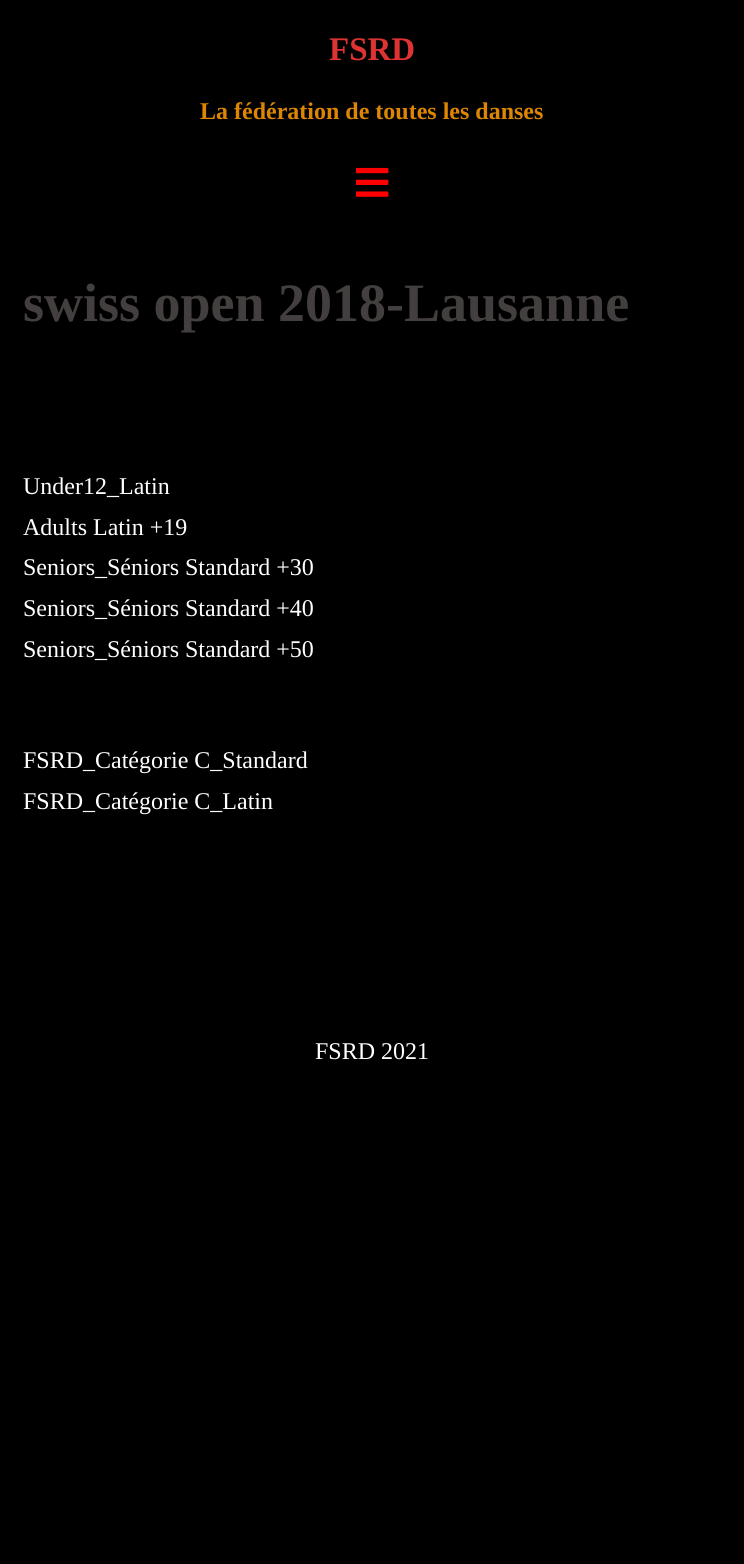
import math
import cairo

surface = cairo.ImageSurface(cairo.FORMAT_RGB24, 744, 1564)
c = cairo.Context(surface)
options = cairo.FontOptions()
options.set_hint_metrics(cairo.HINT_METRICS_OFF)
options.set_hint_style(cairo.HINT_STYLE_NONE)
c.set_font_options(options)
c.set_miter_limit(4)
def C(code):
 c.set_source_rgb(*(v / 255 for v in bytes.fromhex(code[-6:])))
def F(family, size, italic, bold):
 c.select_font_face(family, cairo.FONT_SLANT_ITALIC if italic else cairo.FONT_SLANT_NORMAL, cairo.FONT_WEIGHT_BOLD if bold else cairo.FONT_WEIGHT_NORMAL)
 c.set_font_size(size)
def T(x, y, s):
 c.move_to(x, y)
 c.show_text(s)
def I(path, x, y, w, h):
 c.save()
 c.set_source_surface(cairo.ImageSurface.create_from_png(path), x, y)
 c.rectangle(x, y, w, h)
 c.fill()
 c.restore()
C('000000')
c.paint()
F('Liberation Serif',33,0,1)
C('dd3333')
T(329,60,'FSRD')
F('Liberation Serif',24,0,1)
C('dd8604')
T(200,119,'La fédération de toutes les danses')
I('1.png',356,167,33,30)
F('Liberation Serif',54,0,1)
C('443f3f')
T(23,321,'swiss open 2018-Lausanne')
F('Liberation Serif',24,0,0)
C('ffffff')
T(23,494,'Under12_Latin')
T(23,535,'Adults Latin +19')
T(23,575,'Seniors_Séniors Standard +30')
T(23,616,'Seniors_Séniors Standard +40')
T(23,657,'Seniors_Séniors Standard +50')
T(23,768,'FSRD_Catégorie C_Standard')
T(23,809,'FSRD_Catégorie C_Latin')
T(315,1059,'FSRD 2021')
surface.write_to_png('o.png')
